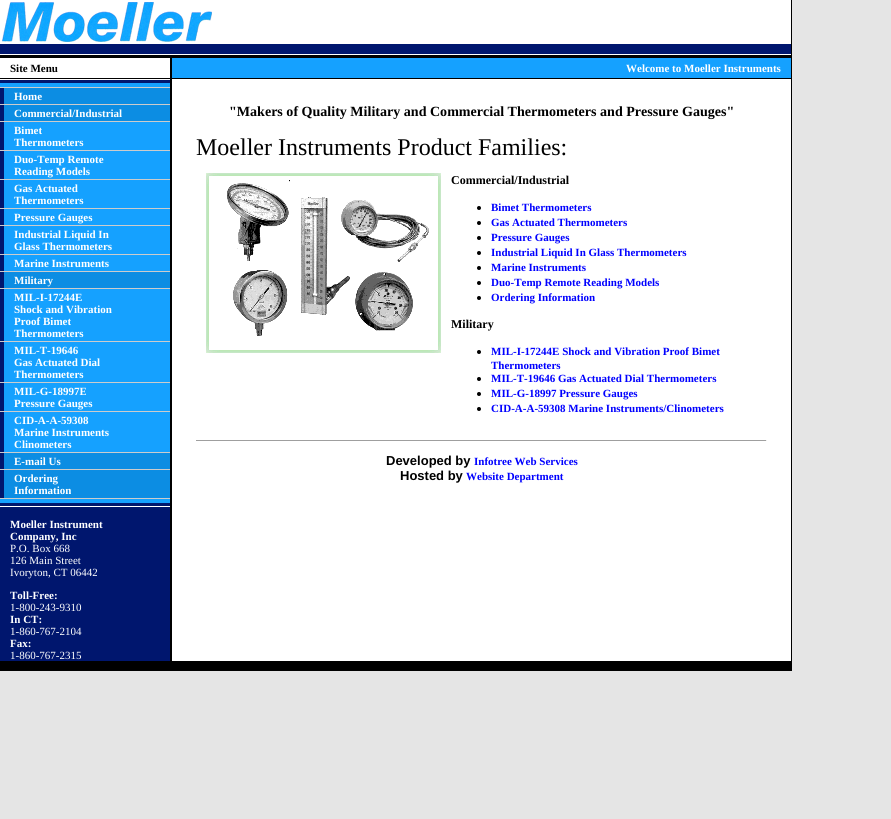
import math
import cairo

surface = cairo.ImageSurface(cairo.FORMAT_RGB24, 891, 819)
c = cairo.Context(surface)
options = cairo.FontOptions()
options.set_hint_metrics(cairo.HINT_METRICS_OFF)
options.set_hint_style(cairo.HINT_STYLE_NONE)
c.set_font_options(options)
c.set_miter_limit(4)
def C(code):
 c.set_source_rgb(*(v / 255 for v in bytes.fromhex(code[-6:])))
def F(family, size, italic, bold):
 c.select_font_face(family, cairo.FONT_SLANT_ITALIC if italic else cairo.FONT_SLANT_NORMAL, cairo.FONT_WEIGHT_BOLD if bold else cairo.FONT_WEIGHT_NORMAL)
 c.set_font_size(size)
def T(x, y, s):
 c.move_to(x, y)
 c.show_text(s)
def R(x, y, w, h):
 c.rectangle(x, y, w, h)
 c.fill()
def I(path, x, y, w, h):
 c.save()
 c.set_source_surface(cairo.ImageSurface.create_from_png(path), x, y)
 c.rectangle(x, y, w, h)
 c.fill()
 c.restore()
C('e5e5e5')
c.paint()
C('ffffff')
R(0,0,791,661)
I('1.png',2,2,210,40)
C('000000')
R(791,0,1,671)
C('00166e')
R(0,44,791,10)
C('000000')
R(0,55,791,3)
F('Liberation Serif',11,0,1)
T(10,72,'Site Menu')
R(170,58,2,20)
C('15a1ff')
R(172,58,619,20)
C('ffffff')
T(626,72,'Welcome to Moeller Instruments')
C('000000')
R(0,78,791,1)
C('00166e')
R(0,80,170,581)
C('15a1ff')
R(0,83,170,420)
C('cccccc')
R(0,87,170,1)
C('00166e')
R(0,88,4,16)
C('0c8de3')
R(4,88,166,16)
C('ffffff')
T(14,100,'Home')
C('cccccc')
R(0,104,170,1)
C('00166e')
R(0,105,4,16)
C('0c8de3')
R(4,105,166,16)
C('ffffff')
T(14,117,'Commercial/Industrial')
C('cccccc')
R(0,121,170,1)
C('00166e')
R(0,122,4,28)
C('ffffff')
T(14,134,'Bimet')
T(14,146,'Thermometers')
C('cccccc')
R(0,150,170,1)
C('00166e')
R(0,151,4,28)
C('ffffff')
T(14,163,'Duo-Temp Remote')
T(14,175,'Reading Models')
C('cccccc')
R(0,179,170,1)
C('00166e')
R(0,180,4,28)
C('ffffff')
T(14,192,'Gas Actuated')
T(14,204,'Thermometers')
C('cccccc')
R(0,208,170,1)
C('00166e')
R(0,209,4,16)
C('ffffff')
T(14,221,'Pressure Gauges')
C('cccccc')
R(0,225,170,1)
C('00166e')
R(0,226,4,28)
C('ffffff')
T(14,238,'Industrial Liquid In')
T(14,250,'Glass Thermometers')
C('cccccc')
R(0,254,170,1)
C('00166e')
R(0,255,4,16)
C('ffffff')
T(14,267,'Marine Instruments')
C('cccccc')
R(0,271,170,1)
C('00166e')
R(0,272,4,16)
C('0c8de3')
R(4,272,166,16)
C('ffffff')
T(14,284,'Military')
C('cccccc')
R(0,288,170,1)
C('00166e')
R(0,289,4,52)
C('ffffff')
T(14,301,'MIL-I-17244E')
T(14,313,'Shock and Vibration')
T(14,325,'Proof Bimet')
T(14,337,'Thermometers')
C('cccccc')
R(0,341,170,1)
C('00166e')
R(0,342,4,40)
C('ffffff')
T(14,354,'MIL-T-19646')
T(14,366,'Gas Actuated Dial')
T(14,378,'Thermometers')
C('cccccc')
R(0,382,170,1)
C('00166e')
R(0,383,4,28)
C('ffffff')
T(14,395,'MIL-G-18997E')
T(14,407,'Pressure Gauges')
C('cccccc')
R(0,411,170,1)
C('00166e')
R(0,412,4,40)
C('ffffff')
T(14,424,'CID-A-A-59308')
T(14,436,'Marine Instruments')
T(14,448,'Clinometers')
C('cccccc')
R(0,452,170,1)
C('00166e')
R(0,453,4,16)
C('0c8de3')
R(4,453,166,16)
C('ffffff')
T(14,465,'E-mail Us')
C('cccccc')
R(0,469,170,1)
C('00166e')
R(0,470,4,28)
C('0c8de3')
R(4,470,166,28)
C('ffffff')
T(14,482,'Ordering')
T(14,494,'Information')
C('cccccc')
R(0,498,170,1)
C('ffffff')
R(0,506,170,1)
T(10,528,'Moeller Instrument')
T(10,540,'Company, Inc')
F('Liberation Serif',11,0,0)
T(10,552,'P.O. Box 668')
T(10,564,'126 Main Street')
T(10,576,'Ivoryton, CT 06442')
F('Liberation Serif',11,0,1)
T(10,599,'Toll-Free:')
F('Liberation Serif',11,0,0)
T(10,611,'1-800-243-9310')
F('Liberation Serif',11,0,1)
T(10,623,'In CT:')
F('Liberation Serif',11,0,0)
T(10,635,'1-860-767-2104')
F('Liberation Serif',11,0,1)
T(10,647,'Fax:')
F('Liberation Serif',11,0,0)
T(10,659,'1-860-767-2315')
C('000000')
R(170,79,2,582)
F('Liberation Serif',14.05,0,1)
T(229,116,'"Makers of Quality Military and Commercial Thermometers and Pressure Gauges"')
F('Liberation Serif',24,0,0)
T(196,155,'Moeller Instruments Product Families:')
I('2.png',206,173,235,180)
F('Liberation Serif',12,0,1)
T(451,184,'Commercial/Industrial')
c.new_path()
c.arc(479,208,2,0,2 * math.pi)
c.fill()
F('Liberation Serif',11,0,1)
C('0000ff')
T(491,211,'Bimet Thermometers')
C('000000')
c.new_path()
c.arc(479,223,2,0,2 * math.pi)
c.fill()
C('0000ff')
T(491,226,'Gas Actuated Thermometers')
C('000000')
c.new_path()
c.arc(479,238,2,0,2 * math.pi)
c.fill()
C('0000ff')
T(491,241,'Pressure Gauges')
C('000000')
c.new_path()
c.arc(479,253,2,0,2 * math.pi)
c.fill()
C('0000ff')
T(491,256,'Industrial Liquid In Glass Thermometers')
C('000000')
c.new_path()
c.arc(479,268,2,0,2 * math.pi)
c.fill()
C('0000ff')
T(491,271,'Marine Instruments')
C('000000')
c.new_path()
c.arc(479,283,2,0,2 * math.pi)
c.fill()
C('0000ff')
T(491,286,'Duo-Temp Remote Reading Models')
C('000000')
c.new_path()
c.arc(479,298,2,0,2 * math.pi)
c.fill()
C('0000ff')
T(491,301,'Ordering Information')
F('Liberation Serif',12,0,1)
C('000000')
T(451,328,'Military')
c.new_path()
c.arc(479,352,2,0,2 * math.pi)
c.fill()
F('Liberation Serif',11,0,1)
C('0000ff')
T(491,355,'MIL-I-17244E Shock and Vibration Proof Bimet')
T(491,369,'Thermometers')
C('000000')
c.new_path()
c.arc(479,379,2,0,2 * math.pi)
c.fill()
C('0000ff')
T(491,382,'MIL-T-19646 Gas Actuated Dial Thermometers')
C('000000')
c.new_path()
c.arc(479,394,2,0,2 * math.pi)
c.fill()
C('0000ff')
T(491,397,'MIL-G-18997 Pressure Gauges')
C('000000')
c.new_path()
c.arc(479,409,2,0,2 * math.pi)
c.fill()
C('0000ff')
T(491,412,'CID-A-A-59308 Marine Instruments/Clinometers')
C('9f9f9f')
R(196,440,571,1)
C('eeeeee')
R(766,440,1,1)
F('Liberation Sans',13,0,1)
C('000000')
T(386,465,'Developed by')
F('Liberation Serif',11,0,1)
C('0000ff')
T(474,465,'Infotree Web Services')
F('Liberation Sans',13,0,1)
C('000000')
T(400,480,'Hosted by')
F('Liberation Serif',11,0,1)
C('0000ff')
T(466,480,'Website Department')
C('000000')
R(0,661,791,10)
surface.write_to_png('o.png')
